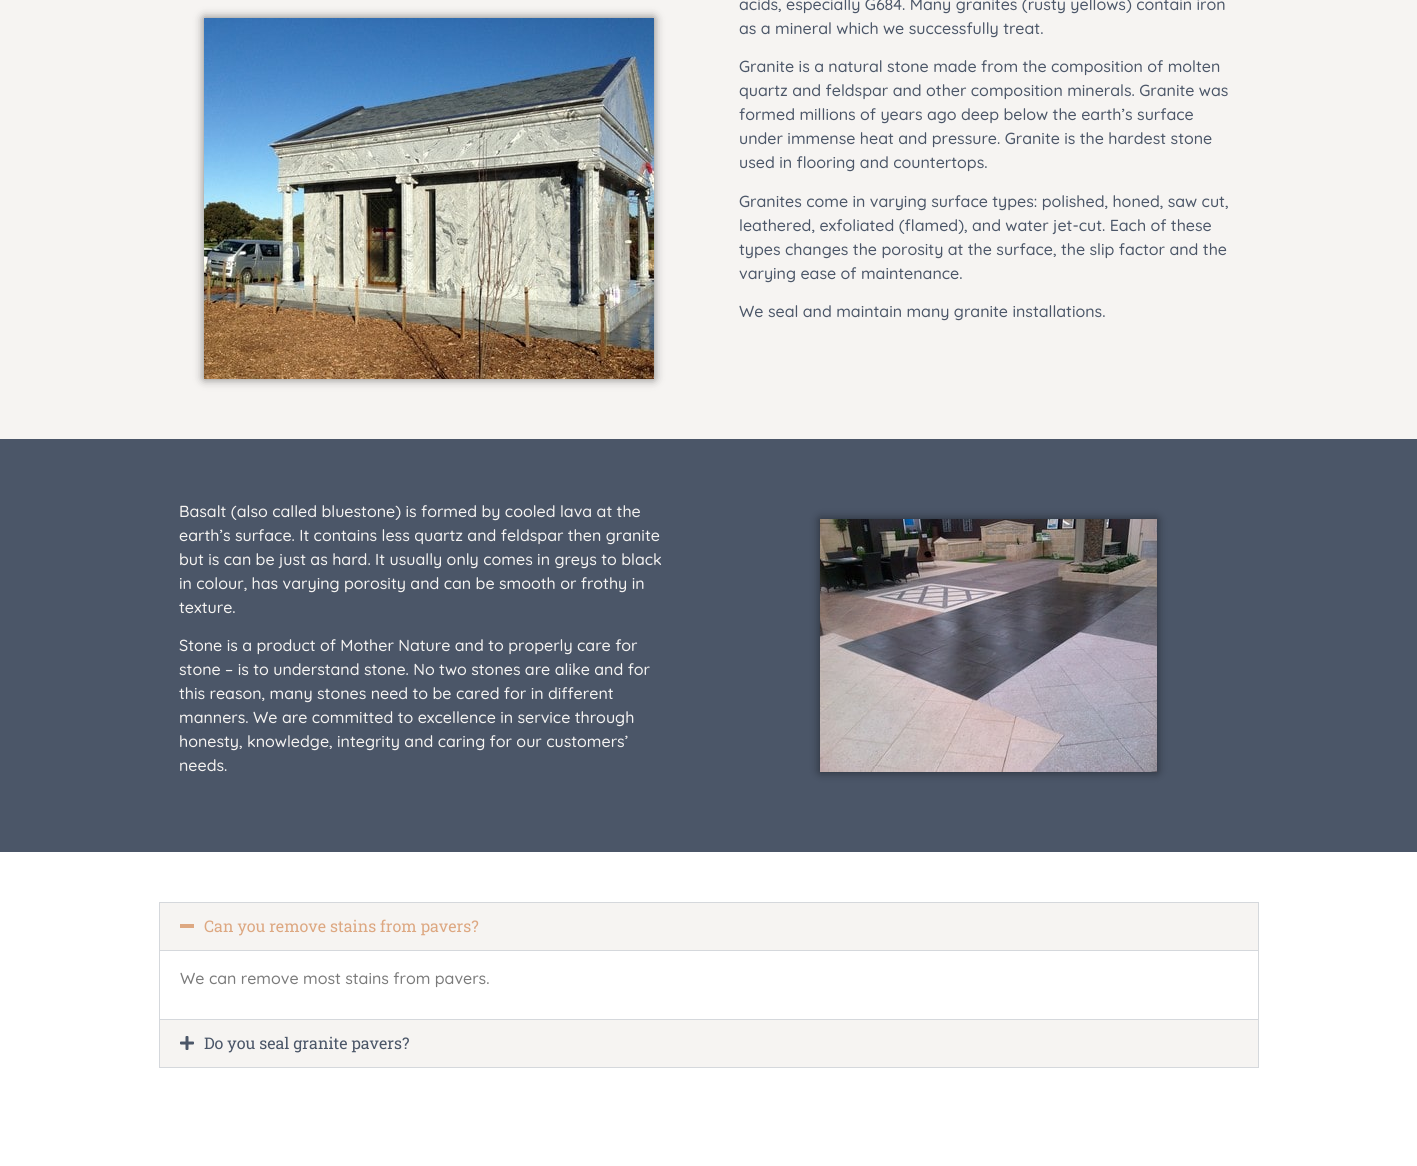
import math
import cairo

surface = cairo.ImageSurface(cairo.FORMAT_RGB24, 1417, 1166)
c = cairo.Context(surface)
options = cairo.FontOptions()
options.set_hint_metrics(cairo.HINT_METRICS_OFF)
options.set_hint_style(cairo.HINT_STYLE_NONE)
c.set_font_options(options)
c.set_miter_limit(4)
def C(code):
 c.set_source_rgb(*(v / 255 for v in bytes.fromhex(code[-6:])))
def F(family, size, italic, bold):
 c.select_font_face(family, cairo.FONT_SLANT_ITALIC if italic else cairo.FONT_SLANT_NORMAL, cairo.FONT_WEIGHT_BOLD if bold else cairo.FONT_WEIGHT_NORMAL)
 c.set_font_size(size)
def T(x, y, s):
 c.move_to(x, y)
 c.show_text(s)
def R(x, y, w, h):
 c.rectangle(x, y, w, h)
 c.fill()
def Q(x, y, w, h, r):
 c.new_sub_path()
 for i, (u, v) in enumerate([(x + w - r, y + h - r), (x + r, y + h - r), (x + r, y + r), (x + w - r, y + r)]):
  c.arc(u, v, r, i * math.pi / 2, (i + 1) * math.pi / 2)
 c.close_path()
def S(x, y, w, h, r, blur, alpha):
 c.push_group_with_content(cairo.CONTENT_ALPHA)
 c.set_operator(cairo.OPERATOR_SOURCE)
 for i in range(15, -16, -2):
  e = blur * i / 6
  if min(w, h) + 2 * e > 0:
   c.set_source_rgba(0, 0, 0, alpha * math.erfc((i - 1) / 8.5) / 2)
   Q(x - e, y - e, w + 2 * e, h + 2 * e, max(0, min(r + e + blur * .6, min(w, h) / 2 + e)))
   c.fill()
 c.mask(c.pop_group())
def I(path, x, y, w, h):
 c.save()
 c.set_source_surface(cairo.ImageSurface.create_from_png(path), x, y)
 c.rectangle(x, y, w, h)
 c.fill()
 c.restore()
C('ffffff')
c.paint()
C('f6f4f2')
R(0,0,1417,439)
C('000000')
S(204,18,450,361,0,5,.5)
I('1.png',204,18,450,361)
F('Quicksand Medium',16,0,0)
C('4b5668')
T(739,10,'acids, especially G684. Many granites (rusty yellows) contain iron')
T(739,34,'as a mineral which we successfully treat.')
T(739,72,'Granite is a natural stone made from the composition of molten')
T(739,96,'quartz and feldspar and other composition minerals. Granite was')
T(739,120,'formed millions of years ago deep below the earth’s surface')
T(739,144,'under immense heat and pressure. Granite is the hardest stone')
T(739,168,'used in flooring and countertops.')
T(739,207,'Granites come in varying surface types: polished, honed, saw cut,')
T(739,231,'leathered, exfoliated (flamed), and water jet-cut. Each of these')
T(739,255,'types changes the porosity at the surface, the slip factor and the')
T(739,279,'varying ease of maintenance.')
T(739,317,'We seal and maintain many granite installations.')
R(0,439,1417,413)
C('f6f4f2')
T(179,517,'Basalt (also called bluestone) is formed by cooled lava at the')
T(179,541,'earth’s surface. It contains less quartz and feldspar then granite')
T(179,565,'but is can be just as hard. It usually only comes in greys to black')
T(179,589,'in colour, has varying porosity and can be smooth or frothy in')
T(179,613,'texture.')
T(179,651,'Stone is a product of Mother Nature and to properly care for')
T(179,675,'stone – is to understand stone. No two stones are alike and for')
T(179,699,'this reason, many stones need to be cared for in different')
T(179,723,'manners. We are committed to excellence in service through')
T(179,747,'honesty, knowledge, integrity and caring for our customers’')
T(179,771,'needs.')
C('000000')
S(820,519,337,253,0,5,.5)
I('2.png',820,519,337,253)
c.rectangle(159.5,902.5,1099,117)
C('d5d8dc')
c.set_line_width(1)
c.stroke()
C('f6f4f2')
R(160,903,1098,47)
C('dda882')
R(180,924,14,4)
F('Roboto Slab',16,0,0)
T(204,932,'Can you remove stains from pavers?')
C('d5d8dc')
R(160,950,1098,1)
F('Quicksand Medium',16,0,0)
C('7a7a7a')
T(180,984,'We can remove most stains from pavers.')
C('d5d8dc')
R(1258,1020,1,48)
R(159,1067,1100,1)
R(159,1020,1,48)
C('f6f4f2')
R(160,1020,1098,47)
I('3.png',180,1036,14,14)
F('Roboto Slab',16,0,0)
C('4b5668')
T(204,1049,'Do you seal granite pavers?')
surface.write_to_png('o.png')
